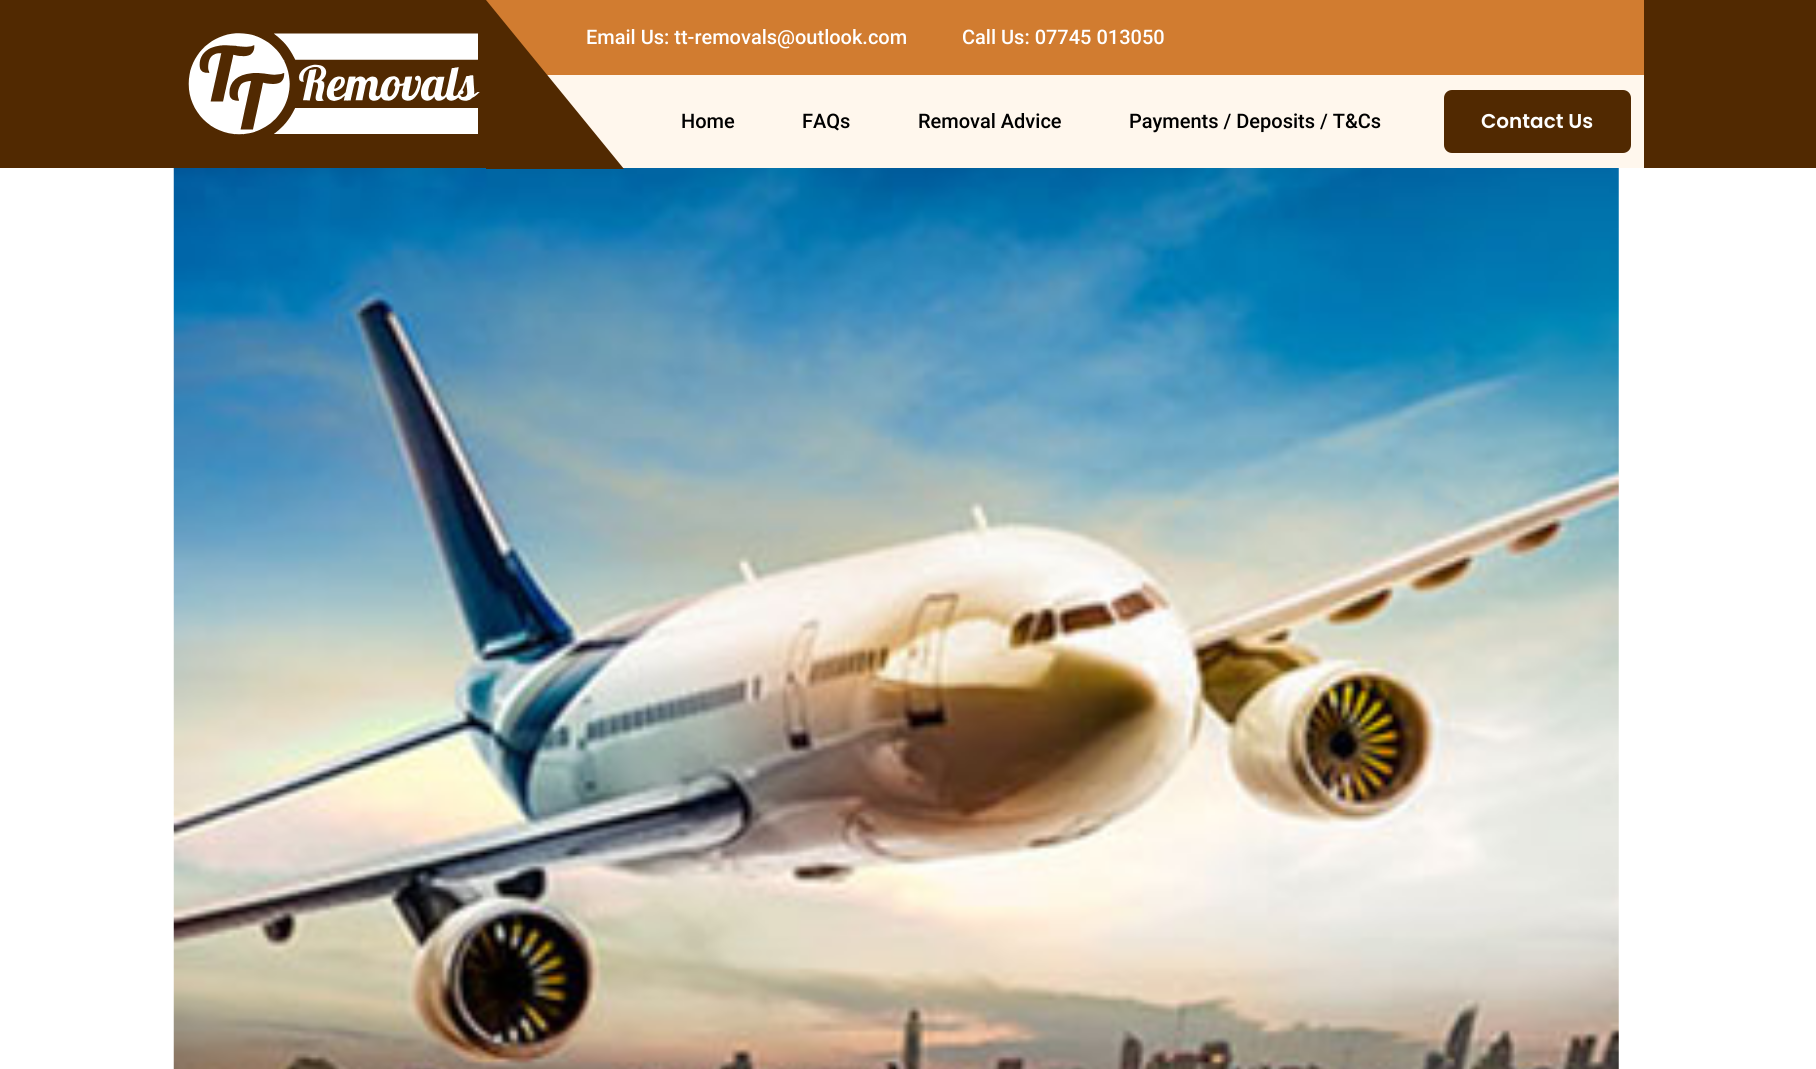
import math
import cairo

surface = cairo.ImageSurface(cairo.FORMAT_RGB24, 1816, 1069)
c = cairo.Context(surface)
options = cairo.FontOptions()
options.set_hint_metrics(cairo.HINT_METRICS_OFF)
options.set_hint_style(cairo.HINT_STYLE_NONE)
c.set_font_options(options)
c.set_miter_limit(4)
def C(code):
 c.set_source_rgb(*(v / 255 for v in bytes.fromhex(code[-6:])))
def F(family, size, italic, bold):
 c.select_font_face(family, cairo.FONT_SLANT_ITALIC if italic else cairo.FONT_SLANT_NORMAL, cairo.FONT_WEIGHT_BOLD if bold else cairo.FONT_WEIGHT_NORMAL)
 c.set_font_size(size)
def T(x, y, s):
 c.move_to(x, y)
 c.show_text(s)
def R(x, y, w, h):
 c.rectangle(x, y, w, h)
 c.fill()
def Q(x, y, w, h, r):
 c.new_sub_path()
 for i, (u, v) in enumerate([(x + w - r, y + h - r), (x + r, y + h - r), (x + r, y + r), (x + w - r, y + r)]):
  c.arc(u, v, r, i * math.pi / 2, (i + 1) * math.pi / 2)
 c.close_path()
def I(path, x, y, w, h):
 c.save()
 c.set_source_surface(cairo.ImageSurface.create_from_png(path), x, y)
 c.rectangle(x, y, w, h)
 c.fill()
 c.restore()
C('ffffff')
c.paint()
C('512901')
R(0,0,1816,168)
I('1.png',188,33,292,102)
C('d17c30')
R(486,0,1158,75)
F('Roboto Medium',20,0,0)
C('ffffff')
T(586,44,'Email Us: tt-removals@outlook.com')
C('fff7ed')
R(547,75,1097,93)
I('2.png',173,168,1446,901)
C('512901')
c.new_path()
c.move_to(624,169)
c.line_to(486,169)
c.line_to(486,0)
c.close_path()
c.fill()
C('ffffff')
T(962,44,'Call Us: 07745 013050')
C('000000')
T(681,128,'Home')
T(802,128,'FAQs')
T(918,128,'Removal Advice')
T(1129,128,'Payments / Deposits / T&Cs')
C('512901')
Q(1444,90,187,63,8)
c.fill()
F('Poppins SemiBold',20,0,0)
C('ffffff')
T(1481,128,'Contact Us')
surface.write_to_png('o.png')
